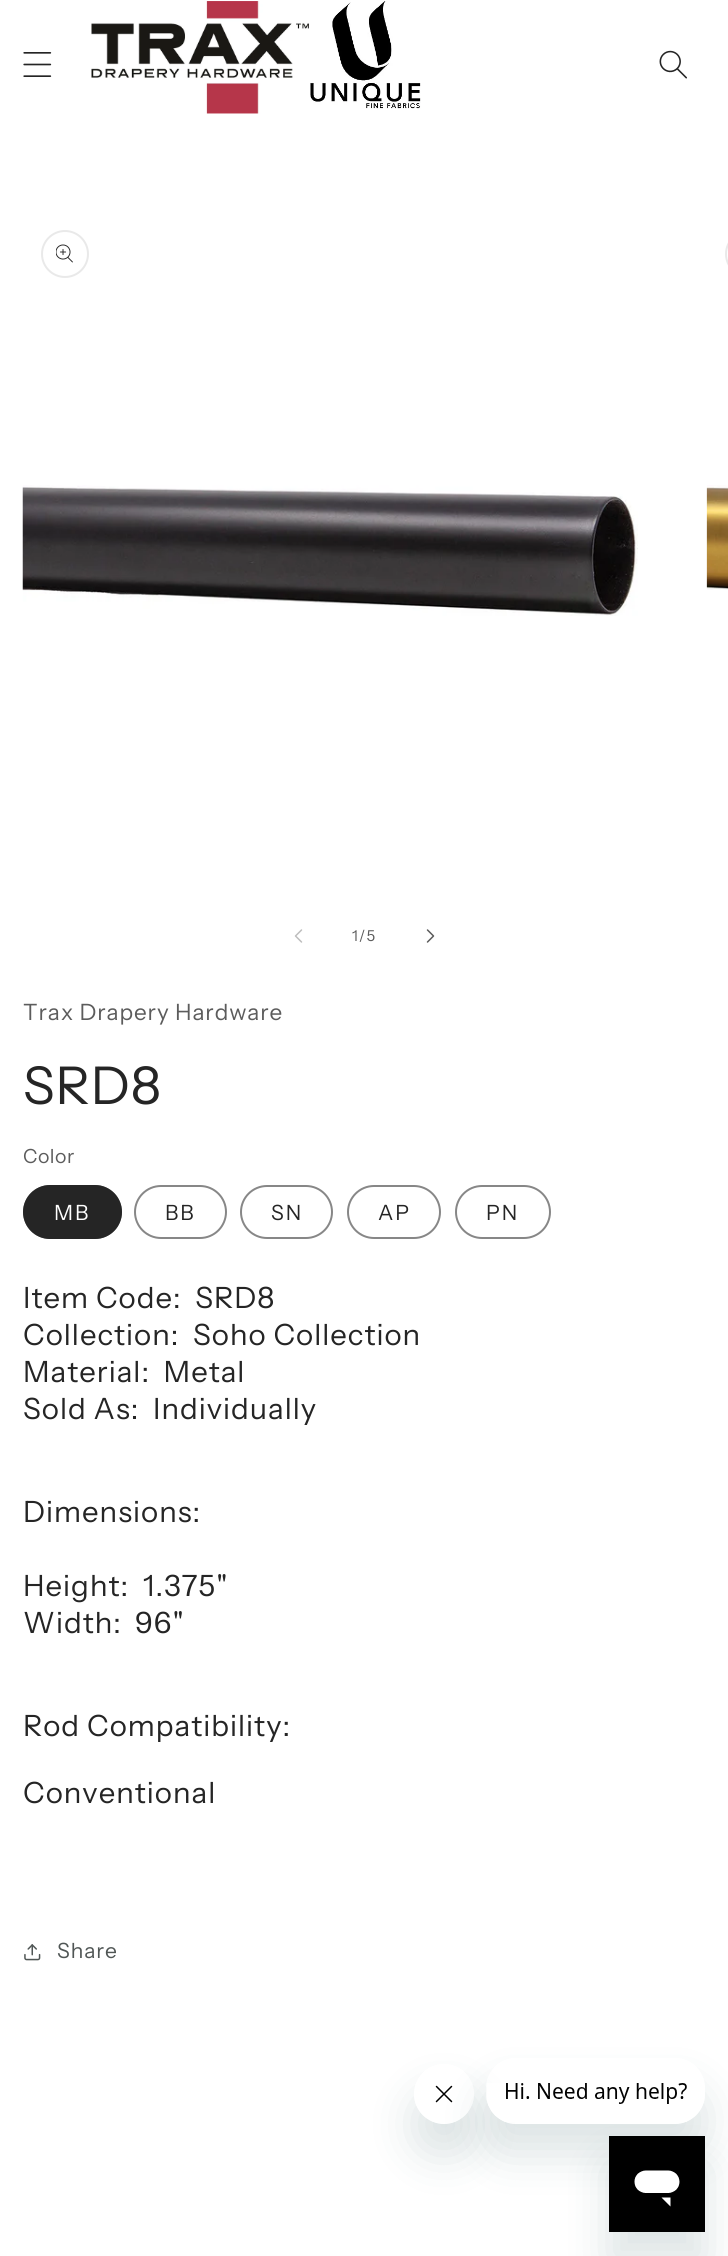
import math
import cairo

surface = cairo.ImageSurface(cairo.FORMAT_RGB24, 728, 2256)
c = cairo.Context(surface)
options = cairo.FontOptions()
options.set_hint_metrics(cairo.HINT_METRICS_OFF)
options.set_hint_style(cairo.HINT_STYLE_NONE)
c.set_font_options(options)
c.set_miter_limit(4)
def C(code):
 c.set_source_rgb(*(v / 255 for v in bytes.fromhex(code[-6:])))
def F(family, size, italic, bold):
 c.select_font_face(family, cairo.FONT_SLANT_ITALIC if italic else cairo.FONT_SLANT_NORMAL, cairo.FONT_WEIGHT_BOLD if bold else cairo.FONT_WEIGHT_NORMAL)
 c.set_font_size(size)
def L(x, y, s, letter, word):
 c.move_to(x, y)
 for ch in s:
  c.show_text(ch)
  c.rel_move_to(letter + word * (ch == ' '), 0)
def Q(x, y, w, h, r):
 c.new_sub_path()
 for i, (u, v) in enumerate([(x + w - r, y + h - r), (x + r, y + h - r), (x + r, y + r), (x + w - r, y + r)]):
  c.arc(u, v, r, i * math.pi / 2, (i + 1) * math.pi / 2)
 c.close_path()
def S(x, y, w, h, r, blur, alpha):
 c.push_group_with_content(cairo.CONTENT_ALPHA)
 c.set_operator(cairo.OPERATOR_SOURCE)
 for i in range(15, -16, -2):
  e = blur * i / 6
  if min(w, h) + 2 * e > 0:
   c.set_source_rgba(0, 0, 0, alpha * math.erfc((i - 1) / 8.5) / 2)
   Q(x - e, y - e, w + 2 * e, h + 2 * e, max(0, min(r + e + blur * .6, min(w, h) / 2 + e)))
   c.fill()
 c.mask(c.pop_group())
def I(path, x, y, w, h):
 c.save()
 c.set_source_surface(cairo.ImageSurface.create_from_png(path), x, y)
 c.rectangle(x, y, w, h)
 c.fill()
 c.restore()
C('ffffff')
c.paint()
I('1.png',23,52,29,25)
I('2.png',91,1,218,113)
I('3.png',310,1,111,108)
I('4.png',659,50,28,29)
c.arc(65,254,23,0,2 * math.pi)
C('e9e9e9')
c.stroke()
I('5.png',56,244,17,19)
I('6.png',22,485,616,131)
Q(726,231,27,46,23)
c.stroke()
I('7.png',706,485,22,105)
I('8.png',294,929,9,14)
F('Instrument Sans',15,0,0)
C('5c5c5c')
L(352,941,'1/5',1,0)
I('9.png',426,929,9,14)
F('Instrument Sans',22.5,0,0)
L(23,1020,'Trax Drapery Hardware',.9,0)
F('Instrument Sans',52,0,0)
C('252525')
L(23,1104,'SRD8',1,0)
F('Instrument Sans',19.5,0,0)
C('5c5c5c')
L(23,1163,'Color',.5,0)
C('252525')
Q(23,1185,99,54,27)
c.fill()
Q(24,1186,97,52,26)
c.set_source_rgba(0.145,0.145,0.145,0.55)
c.stroke()
F('Instrument Sans',21,0,0)
C('ffffff')
L(54,1220,'MB',2,0)
Q(135,1186,91,52,26)
C('878787')
c.stroke()
C('252525')
L(165,1220,'BB',2,0)
Q(241,1186,91,52,26)
C('878787')
c.stroke()
C('252525')
L(271,1220,'SN',2,0)
Q(348,1186,92,52,26)
C('878787')
c.stroke()
C('252525')
L(378,1220,'AP',2,0)
Q(456,1186,94,52,26)
C('878787')
c.stroke()
C('252525')
L(486,1220,'PN',2,0)
F('Instrument Sans',29.3,0,0)
L(23,1308,'Item Code:  SRD8',1,0)
L(23,1345,'Collection:  Soho Collection',1,0)
L(23,1382,'Material:  Metal',1,0)
L(23,1419,'Sold As:  Individually',1,0)
L(23,1522,'Dimensions:',1,0)
L(23,1596,'Height:',1,0)
L(143,1596,'1.375"',1,0)
L(23,1633,'Width:',1,0)
L(135,1633,'96"',1,0)
L(23,1736,'Rod Compatibility:',1,0)
L(23,1803,'Conventional',1,0)
I('10.png',24,1944,17,17)
F('Instrument Sans',21,0,0)
C('505655')
L(57,1958,'Share',.9,0)
c.save()
c.set_fill_rule(cairo.FILL_RULE_EVEN_ODD)
c.new_path()
c.move_to(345,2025)
c.line_to(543,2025)
c.line_to(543,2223)
c.line_to(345,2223)
c.close_path()
c.move_to(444,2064)
c.curve_to(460.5,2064,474,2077.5,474,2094)
c.curve_to(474,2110.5,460.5,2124,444,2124)
c.curve_to(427.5,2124,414,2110.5,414,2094)
c.curve_to(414,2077.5,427.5,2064,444,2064)
c.close_path()
c.clip()
C('17494d')
S(414,2094,60,60,30,22.5,.15)
c.restore()
I('12.png',435,2085,18,18)
c.save()
c.set_fill_rule(cairo.FILL_RULE_EVEN_ODD)
c.new_path()
c.move_to(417,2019)
c.line_to(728,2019)
c.line_to(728,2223)
c.line_to(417,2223)
c.close_path()
c.move_to(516,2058)
c.line_to(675,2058)
c.curve_to(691.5,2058,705,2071.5,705,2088)
c.line_to(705,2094)
c.curve_to(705,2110.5,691.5,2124,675,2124)
c.line_to(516,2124)
c.curve_to(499.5,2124,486,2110.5,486,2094)
c.line_to(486,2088)
c.curve_to(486,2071.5,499.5,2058,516,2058)
c.close_path()
c.clip()
C('17494d')
S(486,2088,219,66,30,22.5,.15)
c.restore()
I('11.png',487,2083,200,39)
C('17494d')
S(609,2166,96,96,0,22.5,.15)
I('13.png',609,2136,96,96)
surface.write_to_png('o.png')
